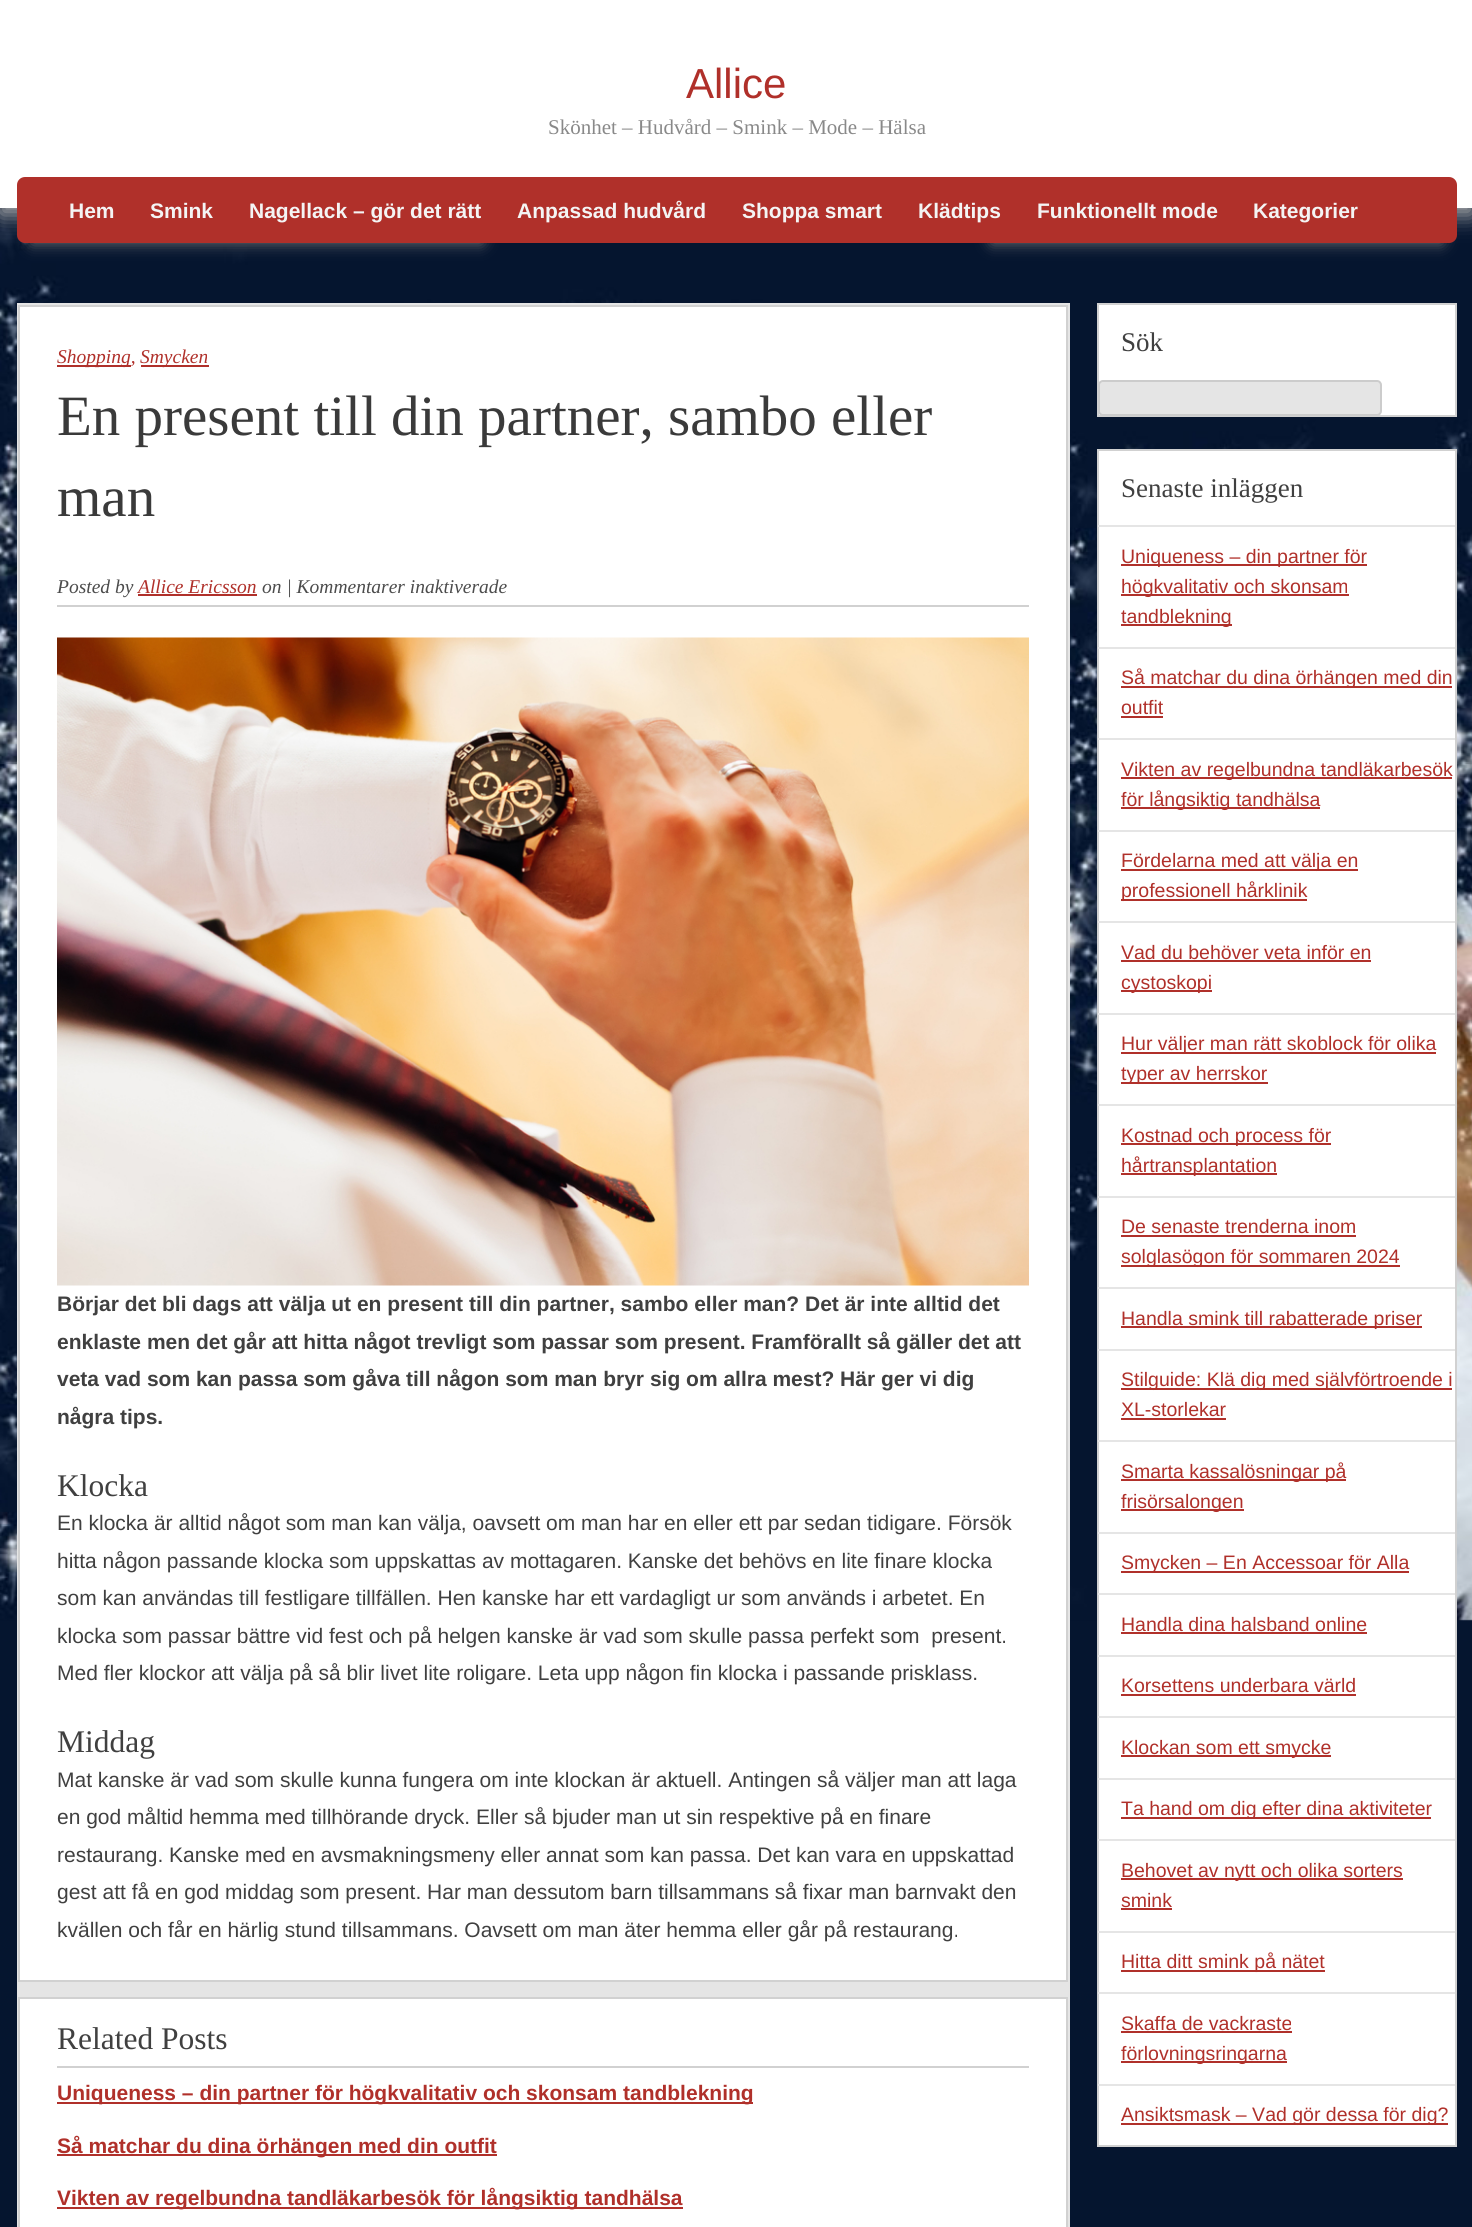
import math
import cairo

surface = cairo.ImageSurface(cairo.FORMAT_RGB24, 1472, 2227)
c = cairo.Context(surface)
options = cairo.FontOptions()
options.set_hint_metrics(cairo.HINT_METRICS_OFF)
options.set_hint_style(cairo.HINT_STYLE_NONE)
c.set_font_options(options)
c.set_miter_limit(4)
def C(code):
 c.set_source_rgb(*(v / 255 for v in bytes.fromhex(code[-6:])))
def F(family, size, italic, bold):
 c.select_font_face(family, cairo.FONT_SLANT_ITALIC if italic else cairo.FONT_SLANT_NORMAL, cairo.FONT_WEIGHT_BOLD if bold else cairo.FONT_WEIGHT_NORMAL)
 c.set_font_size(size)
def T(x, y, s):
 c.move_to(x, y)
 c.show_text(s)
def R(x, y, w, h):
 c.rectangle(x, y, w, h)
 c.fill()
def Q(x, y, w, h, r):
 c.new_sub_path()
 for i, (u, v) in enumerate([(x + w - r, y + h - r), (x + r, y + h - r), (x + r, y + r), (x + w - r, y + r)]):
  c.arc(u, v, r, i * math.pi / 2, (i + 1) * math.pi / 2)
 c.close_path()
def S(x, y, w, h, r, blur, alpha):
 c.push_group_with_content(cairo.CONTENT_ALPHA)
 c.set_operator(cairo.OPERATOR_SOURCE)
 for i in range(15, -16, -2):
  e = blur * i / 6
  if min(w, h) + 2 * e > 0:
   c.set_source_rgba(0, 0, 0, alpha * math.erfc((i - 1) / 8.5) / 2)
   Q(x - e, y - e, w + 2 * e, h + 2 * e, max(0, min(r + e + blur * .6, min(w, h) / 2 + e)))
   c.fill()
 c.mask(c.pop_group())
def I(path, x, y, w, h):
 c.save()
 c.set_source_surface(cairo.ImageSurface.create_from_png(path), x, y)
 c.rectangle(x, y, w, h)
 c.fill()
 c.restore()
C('05152f')
c.paint()
I('1.png',0,208,1472,1413)
C('b2b2b2')
S(0,8,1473,207,0,11,1)
C('777777')
S(32,213,450,30,0,7.5,1)
S(992,213,450,30,0,7.5,1)
C('ffffff')
R(0,0,1472,208)
F('Liberation Sans',42,0,0)
C('b0302a')
T(686,98,'Allice')
F('Liberation Serif',21,0,0)
C('898989')
T(548,134,'Skönhet – Hudvård – Smink – Mode – Hälsa')
C('b0302a')
Q(17,177,1440,66,8)
c.fill()
F('Liberation Sans',21,0,1)
C('f4f4f4')
T(69,218,'Hem')
T(150,218,'Smink')
T(249,218,'Nagellack – gör det rätt')
T(517,218,'Anpassad hudvård')
T(742,218,'Shoppa smart')
T(918,218,'Klädtips')
T(1037,218,'Funktionellt mode')
T(1253,218,'Kategorier')
C('e5e5e5')
R(17,303,1053,1924)
C('ffffff')
c.rectangle(19,306,1048,1675)
c.fill_preserve()
C('d1d1d1')
c.stroke()
R(57,605,972,2)
C('b0302a')
R(57,365,74,2)
F('Liberation Serif',19.5,1,0)
T(57,363,'Shopping,')
R(141,365,68,2)
T(140,363,'Smycken')
F('Liberation Serif',57,0,0)
C('3a3a3a')
T(57,435,'En present till din partner, sambo eller')
T(57,516,'man')
F('Liberation Serif',19.5,1,0)
C('4c4c4c')
T(57,593,'Posted by')
C('b0302a')
T(138,593,'Allice Ericsson')
R(138,594,119,2)
C('4c4c4c')
T(262,593,'on | Kommentarer inaktiverade')
I('2.png',57,637,972,649)
F('Liberation Sans',21,0,1)
C('404040')
T(57,1311,'Börjar det bli dags att välja ut en present till din partner, sambo eller man? Det är inte alltid det')
T(57,1349,'enklaste men det går att hitta något trevligt som passar som present. Framförallt så gäller det att')
T(57,1386,'veta vad som kan passa som gåva till någon som man bryr sig om allra mest? Här ger vi dig')
T(57,1424,'några tips.')
F('Liberation Serif',31.5,0,0)
T(57,1496,'Klocka')
F('Liberation Sans',21,0,0)
T(57,1530,'En klocka är alltid något som man kan välja, oavsett om man har en eller ett par sedan tidigare. Försök')
T(57,1568,'hitta någon passande klocka som uppskattas av mottagaren. Kanske det behövs en lite finare klocka')
T(57,1605,'som kan användas till festligare tillfällen. Hen kanske har ett vardagligt ur som används i arbetet. En')
T(57,1643,'klocka som passar bättre vid fest och på helgen kanske är vad som skulle passa perfekt som  present.')
T(57,1680,'Med fler klockor att välja på så blir livet lite roligare. Leta upp någon fin klocka i passande prisklass.')
F('Liberation Serif',31.5,0,0)
T(57,1752,'Middag')
F('Liberation Sans',21,0,0)
T(57,1787,'Mat kanske är vad som skulle kunna fungera om inte klockan är aktuell. Antingen så väljer man att laga')
T(57,1824,'en god måltid hemma med tillhörande dryck. Eller så bjuder man ut sin respektive på en finare')
T(57,1862,'restaurang. Kanske med en avsmakningsmeny eller annat som kan passa. Det kan vara en uppskattad')
T(57,1899,'gest att få en god middag som present. Har man dessutom barn tillsammans så fixar man barnvakt den')
T(57,1937,'kvällen och får en härlig stund tillsammans. Oavsett om man äter hemma eller går på restaurang.')
C('ffffff')
c.rectangle(19,1998,1048,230)
c.fill_preserve()
C('d1d1d1')
c.stroke()
R(57,2066,972,2)
F('Liberation Serif',31.5,0,0)
C('404040')
T(57,2049,'Related Posts')
C('b0302a')
R(57,2102,696,2)
F('Liberation Sans',21,0,1)
T(57,2100,'Uniqueness – din partner för högkvalitativ och skonsam tandblekning')
R(57,2154,440,2)
T(57,2153,'Så matchar du dina örhängen med din outfit')
R(57,2207,626,2)
T(57,2205,'Vikten av regelbundna tandläkarbesök för långsiktig tandhälsa')
C('ffffff')
c.rectangle(1098,304,358,112)
c.fill_preserve()
C('d1d1d1')
c.stroke()
F('Liberation Serif',27,0,0)
C('404040')
T(1121,351,'Sök')
C('e5e5e5')
Q(1099,381,282,34,4)
c.fill_preserve()
C('cccccc')
c.stroke()
C('ffffff')
c.rectangle(1098,450,358,1696)
c.fill_preserve()
C('d1d1d1')
c.stroke()
C('404040')
T(1121,497,'Senaste inläggen')
C('e5e5e5')
R(1098,525,357,2)
C('b0302a')
R(1121,564,246,2)
F('Liberation Sans',19.5,0,0)
T(1121,563,'Uniqueness – din partner för')
R(1121,594,228,2)
T(1121,593,'högkvalitativ och skonsam')
R(1121,624,111,2)
T(1121,623,'tandblekning')
C('e5e5e5')
R(1098,647,357,2)
C('b0302a')
R(1121,686,331,2)
T(1121,684,'Så matchar du dina örhängen med din')
T(1121,714,'outfit')
R(1121,716,42,2)
C('e5e5e5')
R(1098,738,357,2)
C('b0302a')
R(1121,777,331,2)
T(1121,776,'Vikten av regelbundna tandläkarbesök')
R(1121,807,199,2)
T(1121,806,'för långsiktig tandhälsa')
C('e5e5e5')
R(1098,830,357,2)
C('b0302a')
R(1121,869,237,2)
T(1121,867,'Fördelarna med att välja en')
R(1121,899,186,2)
T(1121,897,'professionell hårklinik')
C('e5e5e5')
R(1098,921,357,2)
C('b0302a')
T(1121,959,'Vad du behöver veta inför en')
R(1121,960,250,2)
R(1121,990,91,2)
T(1121,989,'cystoskopi')
C('e5e5e5')
R(1098,1013,357,2)
C('b0302a')
R(1121,1052,315,2)
T(1121,1050,'Hur väljer man rätt skoblock för olika')
R(1121,1082,147,2)
T(1121,1080,'typer av herrskor')
C('e5e5e5')
R(1098,1104,357,2)
C('b0302a')
R(1121,1143,210,2)
T(1121,1142,'Kostnad och process för')
R(1121,1173,156,2)
T(1121,1172,'hårtransplantation')
C('e5e5e5')
R(1098,1196,357,2)
C('b0302a')
T(1121,1233,'De senaste trenderna inom')
R(1121,1235,235,2)
R(1121,1265,279,2)
T(1121,1263,'solglasögon för sommaren 2024')
C('e5e5e5')
R(1098,1287,357,2)
C('b0302a')
R(1121,1326,301,2)
T(1121,1325,'Handla smink till rabatterade priser')
C('e5e5e5')
R(1098,1349,357,2)
C('b0302a')
R(1121,1388,331,2)
T(1121,1386,'Stilguide: Klä dig med självförtroende i')
T(1121,1416,'XL-storlekar')
R(1121,1418,105,2)
C('e5e5e5')
R(1098,1440,357,2)
C('b0302a')
R(1121,1479,225,2)
T(1121,1478,'Smarta kassalösningar på')
R(1121,1509,123,2)
T(1121,1508,'frisörsalongen')
C('e5e5e5')
R(1098,1532,357,2)
C('b0302a')
R(1121,1571,288,2)
T(1121,1569,'Smycken – En Accessoar för Alla')
C('e5e5e5')
R(1098,1593,357,2)
C('b0302a')
T(1121,1631,'Handla dina halsband online')
R(1121,1632,246,2)
C('e5e5e5')
R(1098,1655,357,2)
C('b0302a')
T(1121,1692,'Korsettens underbara värld')
R(1121,1694,235,2)
C('e5e5e5')
R(1098,1716,357,2)
C('b0302a')
R(1121,1755,210,2)
T(1121,1754,'Klockan som ett smycke')
C('e5e5e5')
R(1098,1778,357,2)
C('b0302a')
R(1121,1817,310,2)
T(1121,1815,'Ta hand om dig efter dina aktiviteter')
C('e5e5e5')
R(1098,1839,357,2)
C('b0302a')
R(1121,1878,282,2)
T(1121,1877,'Behovet av nytt och olika sorters')
T(1121,1907,'smink')
R(1121,1908,51,2)
C('e5e5e5')
R(1098,1931,357,2)
C('b0302a')
R(1121,1970,204,2)
T(1121,1968,'Hitta ditt smink på nätet')
C('e5e5e5')
R(1098,1992,357,2)
C('b0302a')
T(1121,2030,'Skaffa de vackraste')
R(1121,2031,171,2)
R(1121,2061,166,2)
T(1121,2060,'förlovningsringarna')
C('e5e5e5')
R(1098,2084,357,2)
C('b0302a')
R(1121,2123,327,2)
T(1121,2121,'Ansiktsmask – Vad gör dessa för dig?')
surface.write_to_png('o.png')
